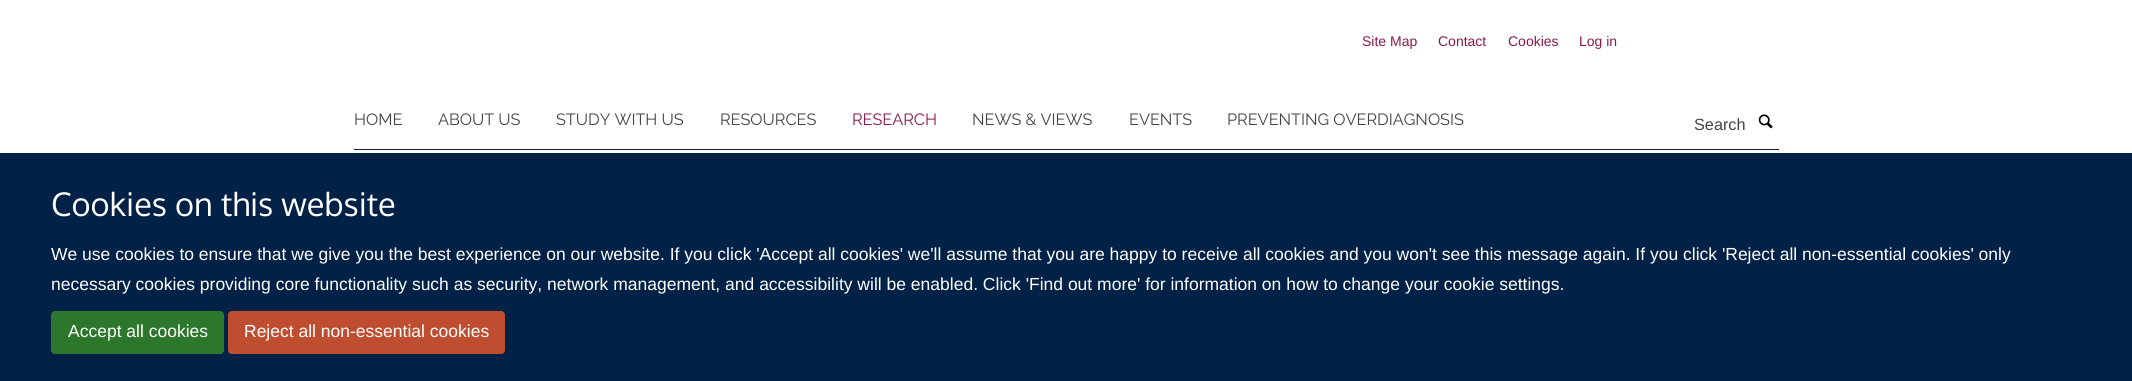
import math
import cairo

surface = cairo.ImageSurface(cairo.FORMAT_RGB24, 2132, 381)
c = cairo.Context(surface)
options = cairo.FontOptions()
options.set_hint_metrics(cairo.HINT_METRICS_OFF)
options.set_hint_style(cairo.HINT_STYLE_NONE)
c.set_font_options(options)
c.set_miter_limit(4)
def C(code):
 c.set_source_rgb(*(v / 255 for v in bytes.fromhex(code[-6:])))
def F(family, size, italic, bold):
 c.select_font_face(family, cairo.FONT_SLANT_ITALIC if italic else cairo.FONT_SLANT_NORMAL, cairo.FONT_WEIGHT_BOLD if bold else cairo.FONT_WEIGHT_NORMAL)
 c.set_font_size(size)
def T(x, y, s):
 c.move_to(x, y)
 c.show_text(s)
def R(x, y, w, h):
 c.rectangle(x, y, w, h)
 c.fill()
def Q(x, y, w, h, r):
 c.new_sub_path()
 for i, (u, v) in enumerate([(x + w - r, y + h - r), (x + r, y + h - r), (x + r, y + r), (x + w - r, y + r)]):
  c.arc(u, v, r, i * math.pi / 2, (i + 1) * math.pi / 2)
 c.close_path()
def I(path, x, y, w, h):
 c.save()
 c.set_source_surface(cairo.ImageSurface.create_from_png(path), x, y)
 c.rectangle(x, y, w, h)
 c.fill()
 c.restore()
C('ffffff')
c.paint()
F('Liberation Sans',14,0,0)
C('8a1751')
T(1362,46,'Site Map')
T(1438,46,'Contact')
T(1508,46,'Cookies')
T(1579,46,'Log in')
C('012146')
R(354,149,1425,1)
F('Raleway Thin',16.25,0,0)
C('444444')
T(354,125,'HOME')
T(438,125,'ABOUT US')
T(556,125,'STUDY WITH US')
T(720,125,'RESOURCES')
C('8a1751')
T(852,125,'RESEARCH')
C('444444')
T(972,125,'NEWS & VIEWS')
T(1129,125,'EVENTS')
T(1227,125,'PREVENTING OVERDIAGNOSIS')
F('Liberation Sans',16.25,0,0)
T(1694,130,'Search')
I('1.png',1758,114,15,15)
C('012146')
R(0,153,2132,228)
F('Oxygen',32.5,0,0)
C('ffffff')
T(51,216,'Cookies on this website')
F('Liberation Sans',17.5,0,0)
T(51,260,'We use cookies to ensure that we give you the best experience on our website. If you click \'Accept all cookies\' we\'ll assume that you are happy to receive all cookies and you won\'t see this message again. If you click \'Reject all non-essential cookies\' only')
T(51,290,'necessary cookies providing core functionality such as security, network management, and accessibility will be enabled. Click \'Find out more\' for information on how to change your cookie settings.')
C('2d772d')
Q(51.5,311.5,172,42,3.5)
c.fill_preserve()
c.set_line_width(1)
c.stroke()
C('ffffff')
T(68,337,'Accept all cookies')
C('bf4e30')
Q(228.5,311.5,276,42,3.5)
c.fill_preserve()
c.stroke()
C('ffffff')
T(244,337,'Reject all non-essential cookies')
surface.write_to_png('o.png')
